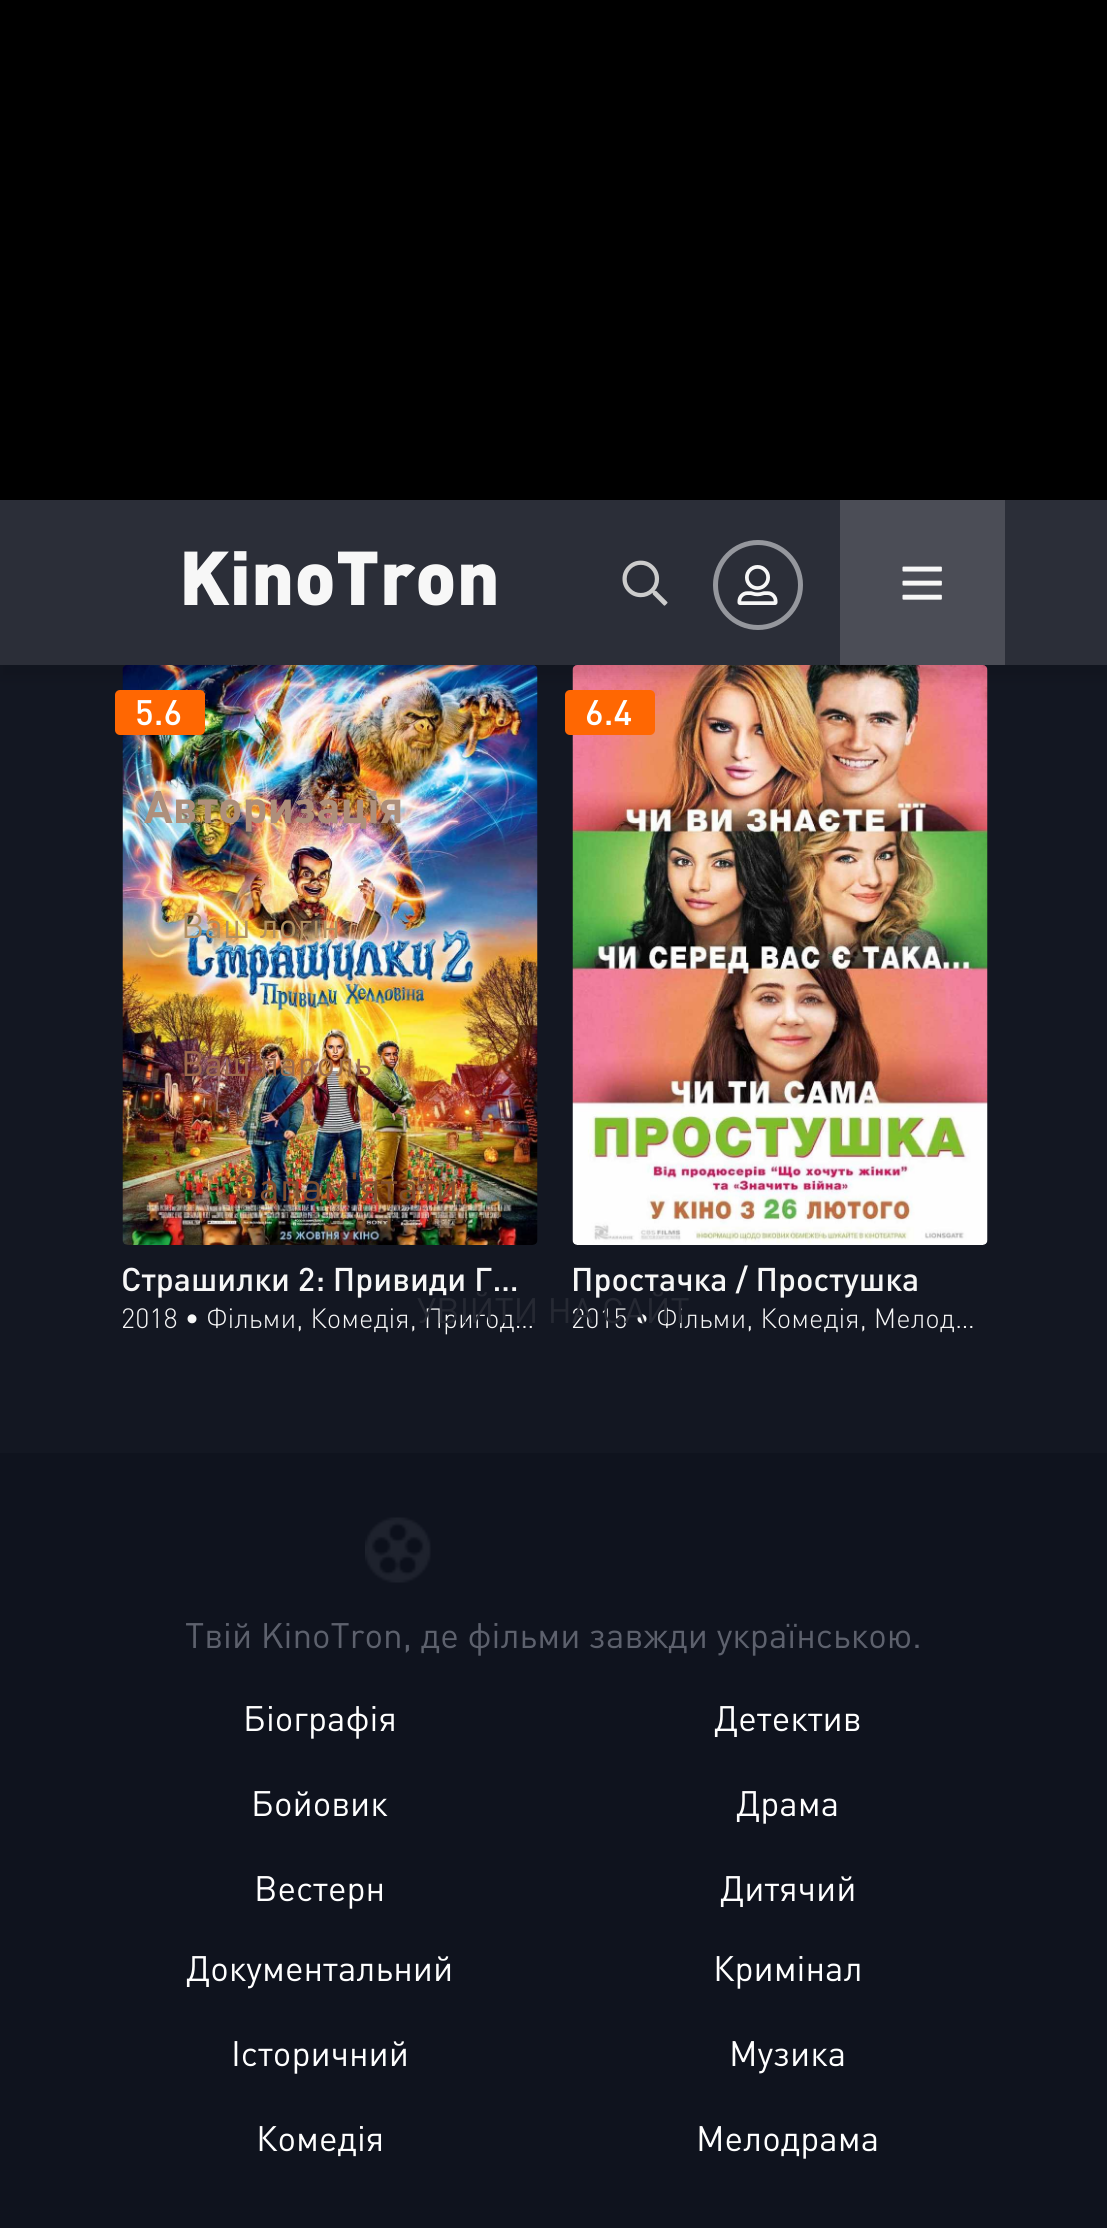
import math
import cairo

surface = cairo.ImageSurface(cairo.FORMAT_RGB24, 1107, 2228)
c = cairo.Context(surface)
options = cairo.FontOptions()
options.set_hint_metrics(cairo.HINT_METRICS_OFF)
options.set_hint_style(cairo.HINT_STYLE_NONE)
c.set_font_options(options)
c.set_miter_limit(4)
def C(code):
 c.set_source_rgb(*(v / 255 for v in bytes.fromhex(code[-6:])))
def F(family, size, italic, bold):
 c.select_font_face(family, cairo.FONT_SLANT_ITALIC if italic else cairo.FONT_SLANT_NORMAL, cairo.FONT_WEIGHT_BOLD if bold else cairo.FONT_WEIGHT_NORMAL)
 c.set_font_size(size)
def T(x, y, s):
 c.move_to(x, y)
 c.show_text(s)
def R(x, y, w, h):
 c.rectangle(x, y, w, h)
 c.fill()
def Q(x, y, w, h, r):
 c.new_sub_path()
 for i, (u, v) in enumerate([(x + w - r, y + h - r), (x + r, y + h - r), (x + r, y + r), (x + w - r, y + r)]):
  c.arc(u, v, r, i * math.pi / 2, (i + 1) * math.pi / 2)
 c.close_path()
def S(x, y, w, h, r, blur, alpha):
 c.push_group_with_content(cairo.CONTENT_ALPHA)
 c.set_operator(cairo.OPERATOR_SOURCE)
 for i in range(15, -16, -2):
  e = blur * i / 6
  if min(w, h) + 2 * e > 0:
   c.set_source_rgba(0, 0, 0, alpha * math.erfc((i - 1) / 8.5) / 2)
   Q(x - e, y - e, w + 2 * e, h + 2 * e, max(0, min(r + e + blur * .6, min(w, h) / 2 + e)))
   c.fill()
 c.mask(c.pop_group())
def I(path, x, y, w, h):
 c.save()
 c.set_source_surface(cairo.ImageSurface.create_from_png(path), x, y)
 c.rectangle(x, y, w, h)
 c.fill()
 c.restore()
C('000000')
c.paint()
C('131722')
R(0,665,1107,788)
I('4.png',122,665,416,580)
C('ff6702')
Q(115,690,90,45,5)
c.fill()
I('5.png',572,665,416,580)
Q(565,690,90,45,5)
c.fill()
C('000000')
S(0,513,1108,165,0,6,.1)
C('2b2e38')
R(0,500,1107,165)
F('DIN Black',75,0,0)
C('f7f7f7')
T(179,605,'KinoTron')
I('1.png',622,560,46,46)
c.arc(758,585,42.5,0,2 * math.pi)
C('95979d')
c.set_line_width(5)
c.stroke()
I('2.png',737,565,41,40)
C('4b4d56')
R(840,500,165,165)
I('3.png',902,566,40,34)
F('DIN',45,0,1)
C('ae8f7b')
T(144,823,'Авторизація')
F('DIN',35,0,0)
C('b29163')
T(181,938,'Ваш логін')
c.save()
c.rectangle(183,1040,745,43)
c.clip()
C('9d6b4c')
T(181,1076,'Ваш пароль')
c.restore()
F('DIN',40,0,0)
C('805031')
T(234,1201,'Запам\'ятати')
F('DIN Light',27.5,0,0)
C('f7f7f7')
T(121,1328,'2018 • Фільми, Комедія, Пригод…')
T(571,1328,'2015 • Фільми, Комедія, Мелод…')
F('DIN',35,0,0)
C('262933')
T(417,1323,'УВІЙТИ НА САЙТ')
F('DIN Medium',35,0,0)
C('ffffff')
T(135,725,'5.6')
F('DIN Medium',32.5,0,0)
C('f7f7f7')
T(121,1291,'Страшилки 2: Привиди Г…')
F('DIN Medium',35,0,0)
C('ffffff')
T(585,725,'6.4')
F('DIN Medium',32.5,0,0)
C('f7f7f7')
T(571,1291,'Простачка / Простушка')
C('0f131e')
R(0,1453,1107,775)
I('6.png',365,1517,66,66)
F('DIN',35,0,0)
C('5d616d')
T(185,1648,'Твій KinoTron, де фільми завжди українською.')
C('ffffff')
T(243,1731,'Біографія')
T(251,1816,'Бойовик')
T(254,1901,'Вестерн')
T(714,1731,'Детектив')
T(736,1816,'Драма')
T(720,1901,'Дитячий')
T(186,1981,'Документальний')
T(231,2066,'Історичний')
T(256,2151,'Комедія')
T(713,1981,'Кримінал')
T(729,2066,'Музика')
T(696,2151,'Мелодрама')
surface.write_to_png('o.png')
